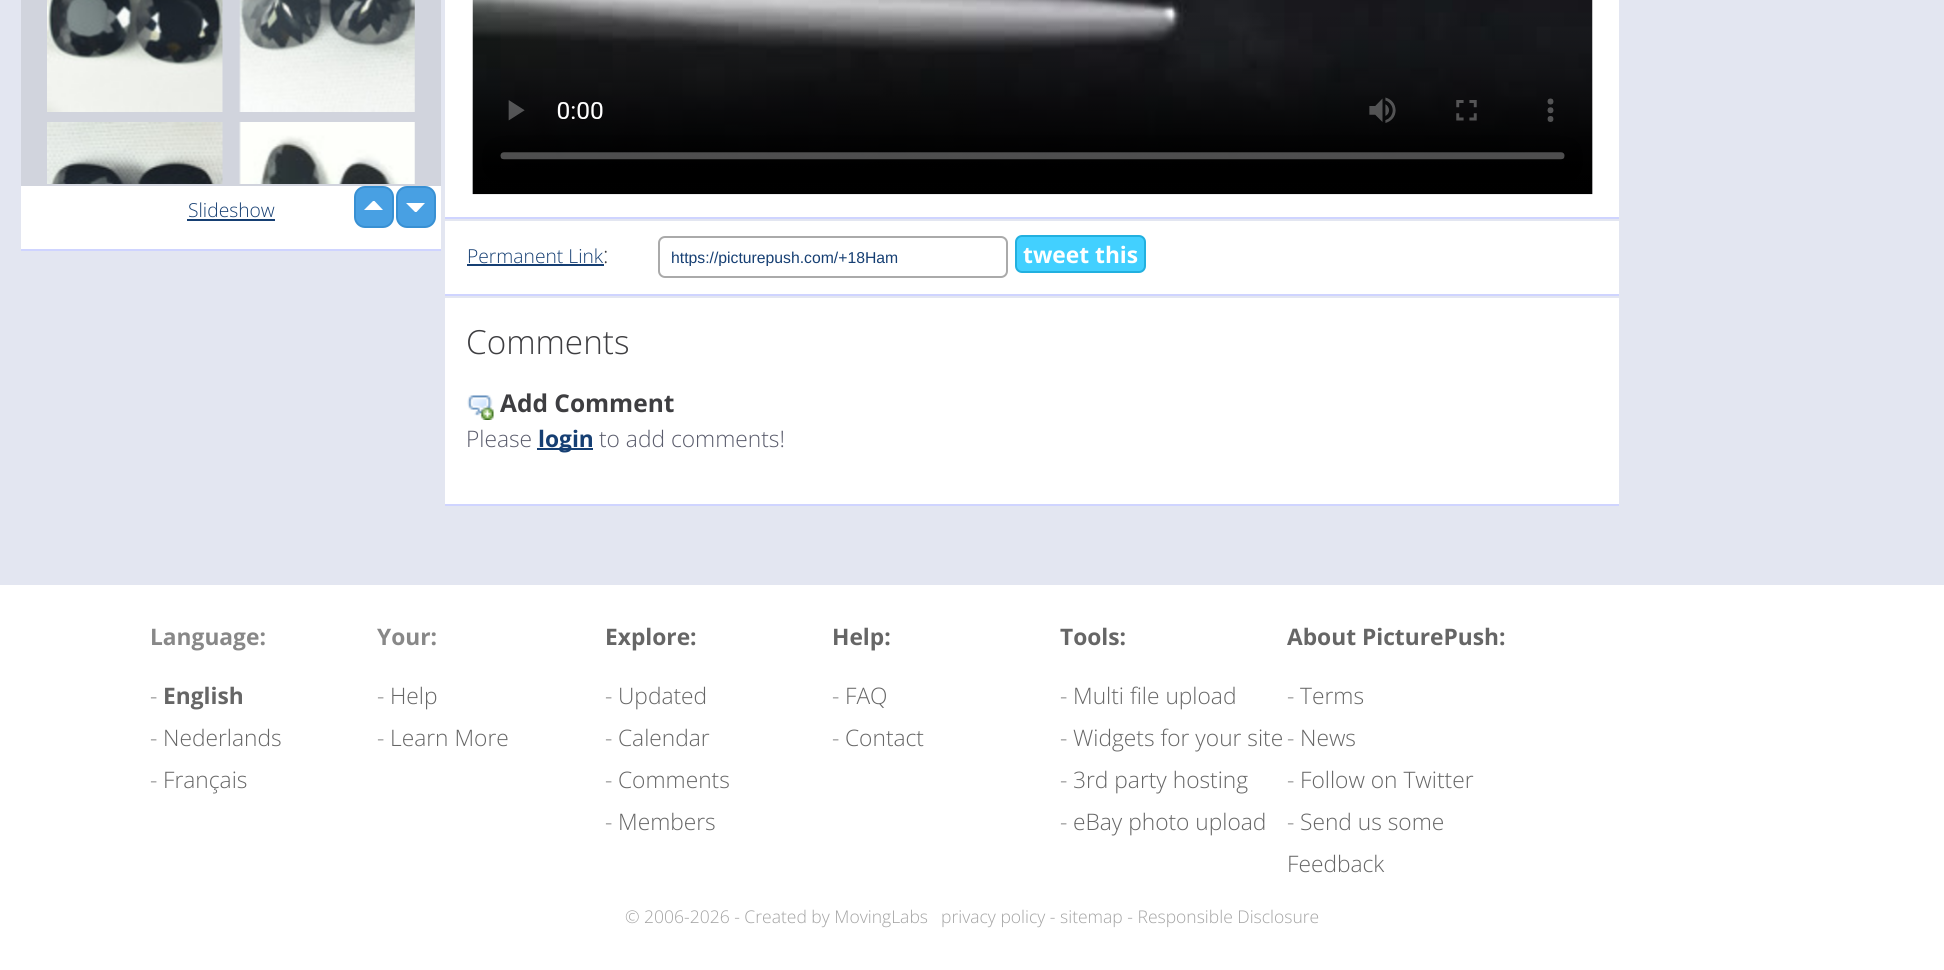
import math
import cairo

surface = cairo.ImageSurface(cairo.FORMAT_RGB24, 1944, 970)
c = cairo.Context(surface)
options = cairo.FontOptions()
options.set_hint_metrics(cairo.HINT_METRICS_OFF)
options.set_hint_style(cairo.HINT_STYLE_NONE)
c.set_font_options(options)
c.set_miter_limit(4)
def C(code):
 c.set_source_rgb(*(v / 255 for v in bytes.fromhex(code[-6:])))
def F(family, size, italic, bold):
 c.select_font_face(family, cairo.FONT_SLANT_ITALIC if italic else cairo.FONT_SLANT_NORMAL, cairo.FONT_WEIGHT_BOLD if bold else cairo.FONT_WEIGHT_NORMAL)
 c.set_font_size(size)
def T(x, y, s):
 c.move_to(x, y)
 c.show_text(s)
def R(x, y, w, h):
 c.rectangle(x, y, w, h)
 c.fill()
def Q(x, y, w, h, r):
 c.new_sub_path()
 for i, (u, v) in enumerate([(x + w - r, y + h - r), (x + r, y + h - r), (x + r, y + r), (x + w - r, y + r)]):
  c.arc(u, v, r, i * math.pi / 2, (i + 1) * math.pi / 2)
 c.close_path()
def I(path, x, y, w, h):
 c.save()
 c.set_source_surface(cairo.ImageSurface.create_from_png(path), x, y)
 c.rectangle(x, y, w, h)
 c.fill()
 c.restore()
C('e3e6f1')
c.paint()
C('d1d4dd')
R(21,0,420,186)
C('cfd4ff')
R(21,249,420,2)
I('1.png',47,0,176,112)
I('2.png',239,0,176,112)
I('3.png',47,122,176,62)
I('4.png',239,122,176,62)
C('ffffff')
R(21,186,420,63)
C('48a0e3')
Q(355,187,38,40,10)
c.fill_preserve()
C('3890d3')
c.stroke()
C('48a0e3')
Q(397,187,38,40,10)
c.fill_preserve()
C('3890d3')
c.stroke()
C('ffffff')
c.new_path()
c.move_to(383,210)
c.line_to(364,210)
c.line_to(373,201)
c.line_to(374.5,201)
c.close_path()
c.move_to(406,203)
c.line_to(425,203)
c.line_to(416.5,212)
c.line_to(415,212)
c.close_path()
c.fill()
F('Open Sans Light',19.25,0,0)
C('163f73')
T(188,217,'Slideshow')
R(187,219,88,2)
C('ffffff')
R(445,0,1174,217)
C('cfd4ff')
R(445,217,1174,2)
I('5.png',472,0,1121,195)
C('ffffff')
R(445,221,1174,73)
C('cfd4ff')
R(445,294,1174,2)
C('163f73')
T(467,263,'Permanent Link')
R(467,264,137,2)
F('Open Sans Light',22.75,0,0)
C('3e3e41')
T(603,263,':')
Q(659,237,348,40,6)
C('aaaaaa')
c.stroke()
c.save()
c.rectangle(670,249,326,17)
c.clip()
F('Liberation Sans',15.75,0,0)
C('163f73')
T(671,263,'https://picturepush.com/+18Ham')
c.restore()
C('42d0ff')
Q(1016,236,129,36,6)
c.fill_preserve()
C('22b0df')
c.stroke()
F('Open Sans',22.75,0,1)
C('ffffff')
T(1023,263,'tweet this')
R(445,298,1174,206)
C('cfd4ff')
R(445,504,1174,2)
F('Open Sans Light',33.25,0,0)
C('3e3e41')
T(466,354,'Comments')
I('6.png',467,395,27,25)
F('Open Sans',24.5,0,1)
T(500,412,'Add Comment')
F('Open Sans Light',22.75,0,0)
C('5a5c6c')
T(466,447,'Please')
C('163f73')
R(537,448,56,2)
F('Open Sans',22.75,0,1)
T(538,447,'login')
F('Open Sans Light',22.75,0,0)
C('5a5c6c')
T(599,447,'to add comments!')
C('ffffff')
R(0,585,1944,385)
F('Open Sans',22.75,0,1)
C('888888')
T(150,645,'Language:')
F('Open Sans Light',22.75,0,0)
T(150,704,'-')
F('Open Sans',22.75,0,1)
C('666666')
T(163,704,'English')
F('Open Sans Light',22.75,0,0)
C('888888')
T(150,746,'-')
C('666666')
T(163,746,'Nederlands')
C('888888')
T(150,788,'-')
C('666666')
T(163,788,'Français')
F('Open Sans',22.75,0,1)
C('888888')
T(377,645,'Your:')
F('Open Sans Light',22.75,0,0)
T(377,704,'-')
C('666666')
T(390,704,'Help')
C('888888')
T(377,746,'-')
C('666666')
T(390,746,'Learn More')
F('Open Sans',22.75,0,1)
T(605,645,'Explore:')
F('Open Sans Light',22.75,0,0)
C('888888')
T(605,704,'-')
C('666666')
T(618,704,'Updated')
C('888888')
T(605,746,'-')
C('666666')
T(618,746,'Calendar')
C('888888')
T(605,788,'-')
C('666666')
T(618,788,'Comments')
C('888888')
T(605,830,'-')
C('666666')
T(618,830,'Members')
F('Open Sans',22.75,0,1)
T(832,645,'Help:')
F('Open Sans Light',22.75,0,0)
C('888888')
T(832,704,'-')
C('666666')
T(845,704,'FAQ')
C('888888')
T(832,746,'-')
C('666666')
T(845,746,'Contact')
F('Open Sans',22.75,0,1)
T(1060,645,'Tools:')
F('Open Sans Light',22.75,0,0)
C('888888')
T(1060,704,'-')
C('666666')
T(1073,704,'Multi file upload')
C('888888')
T(1060,746,'-')
C('666666')
T(1073,746,'Widgets for your site')
C('888888')
T(1060,788,'-')
C('666666')
T(1073,788,'3rd party hosting')
C('888888')
T(1060,830,'-')
C('666666')
T(1073,830,'eBay photo upload')
F('Open Sans',22.75,0,1)
T(1287,645,'About PicturePush:')
F('Open Sans Light',22.75,0,0)
C('888888')
T(1287,704,'-')
C('666666')
T(1300,704,'Terms')
C('888888')
T(1287,746,'-')
C('666666')
T(1300,746,'News')
C('888888')
T(1287,788,'-')
C('666666')
T(1300,788,'Follow on Twitter')
C('888888')
T(1287,830,'-')
C('666666')
T(1300,830,'Send us some')
T(1287,872,'Feedback')
F('Open Sans Light',17.5,0,0)
C('a3a3a3')
T(625,923,'© 2006-2026 - Created by MovingLabs')
T(941,923,'privacy policy - sitemap - Responsible Disclosure')
surface.write_to_png('o.png')
